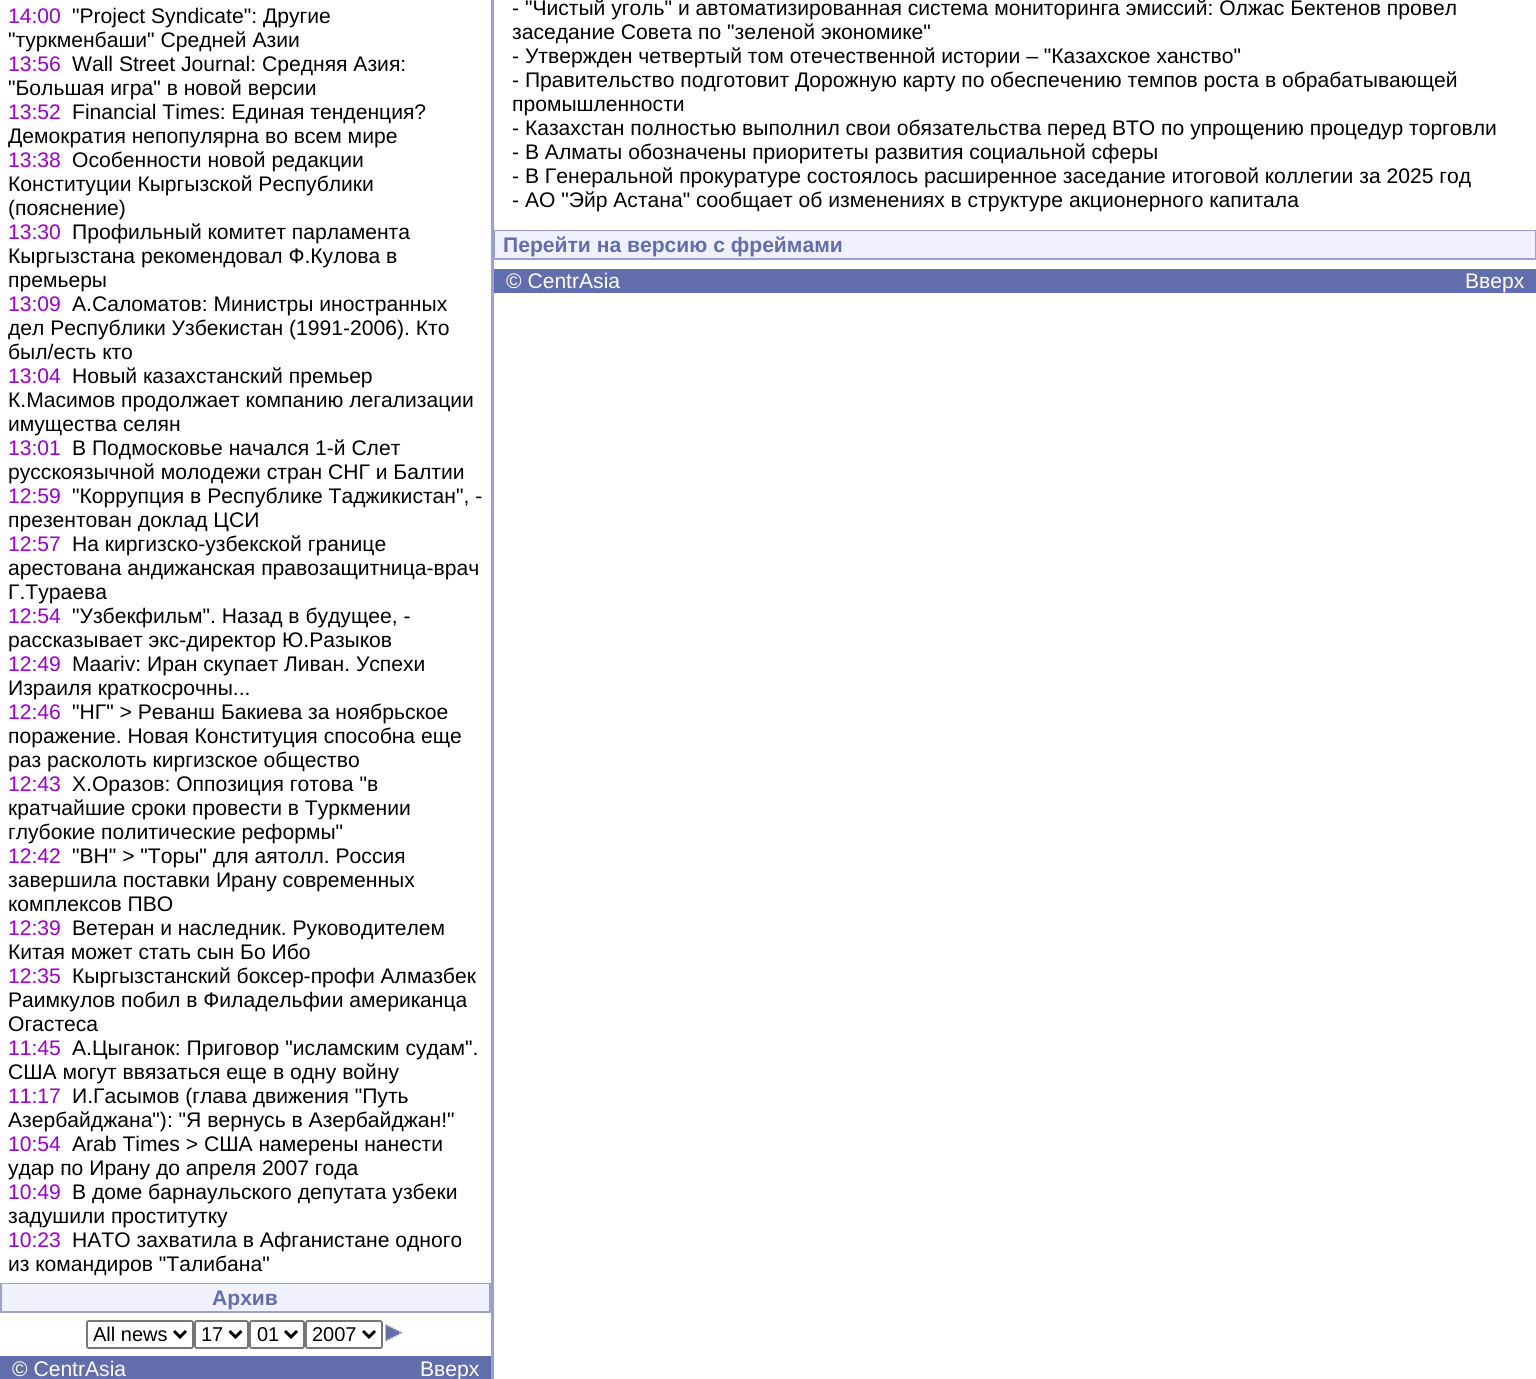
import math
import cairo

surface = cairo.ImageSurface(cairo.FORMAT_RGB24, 1536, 1379)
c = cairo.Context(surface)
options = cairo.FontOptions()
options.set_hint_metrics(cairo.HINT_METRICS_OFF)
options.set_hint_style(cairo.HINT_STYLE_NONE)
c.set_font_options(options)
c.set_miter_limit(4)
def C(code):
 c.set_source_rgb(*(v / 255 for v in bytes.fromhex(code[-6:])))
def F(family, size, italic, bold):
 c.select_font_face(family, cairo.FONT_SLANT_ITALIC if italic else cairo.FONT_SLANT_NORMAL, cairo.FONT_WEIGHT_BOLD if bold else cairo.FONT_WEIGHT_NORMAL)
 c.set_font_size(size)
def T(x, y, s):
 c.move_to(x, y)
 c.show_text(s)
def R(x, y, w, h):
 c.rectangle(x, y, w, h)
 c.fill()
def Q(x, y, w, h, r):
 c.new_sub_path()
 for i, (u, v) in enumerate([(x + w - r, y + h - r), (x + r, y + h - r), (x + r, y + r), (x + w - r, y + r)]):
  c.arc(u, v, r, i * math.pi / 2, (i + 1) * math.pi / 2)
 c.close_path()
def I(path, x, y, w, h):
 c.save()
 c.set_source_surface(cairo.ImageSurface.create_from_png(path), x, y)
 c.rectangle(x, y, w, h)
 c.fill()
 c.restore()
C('ffffff')
c.paint()
F('Liberation Sans',21.1,0,0)
C('9900cc')
T(8,23,'14:00')
C('000000')
T(72,23,'"Project Syndicate": Другие')
T(8,47,'"туркменбаши" Средней Азии')
C('9900cc')
T(8,71,'13:56')
C('000000')
T(72,71,'Wall Street Journal: Средняя Азия:')
T(8,95,'"Большая игра" в новой версии')
C('9900cc')
T(8,119,'13:52')
C('000000')
T(72,119,'Financial Times: Единая тенденция?')
T(8,143,'Демократия непопулярна во всем мире')
C('9900cc')
T(8,167,'13:38')
C('000000')
T(72,167,'Особенности новой редакции')
T(8,191,'Конституции Кыргызской Республики')
T(8,215,'(пояснение)')
C('9900cc')
T(8,239,'13:30')
C('000000')
T(72,239,'Профильный комитет парламента')
T(8,263,'Кыргызстана рекомендовал Ф.Кулова в')
T(8,287,'премьеры')
C('9900cc')
T(8,311,'13:09')
C('000000')
T(72,311,'А.Саломатов: Министры иностранных')
T(8,335,'дел Республики Узбекистан (1991-2006). Кто')
T(8,359,'был/есть кто')
C('9900cc')
T(8,383,'13:04')
C('000000')
T(72,383,'Новый казахстанский премьер')
T(8,407,'К.Масимов продолжает компанию легализации')
T(8,431,'имущества селян')
C('9900cc')
T(8,455,'13:01')
C('000000')
T(72,455,'В Подмосковье начался 1-й Слет')
T(8,479,'русскоязычной молодежи стран СНГ и Балтии')
C('9900cc')
T(8,503,'12:59')
C('000000')
T(72,503,'"Коррупция в Республике Таджикистан", -')
T(8,527,'презентован доклад ЦСИ')
C('9900cc')
T(8,551,'12:57')
C('000000')
T(72,551,'На киргизско-узбекской границе')
T(8,575,'арестована андижанская правозащитница-врач')
T(8,599,'Г.Тураева')
C('9900cc')
T(8,623,'12:54')
C('000000')
T(72,623,'"Узбекфильм". Назад в будущее, -')
T(8,647,'рассказывает экс-директор Ю.Разыков')
C('9900cc')
T(8,671,'12:49')
C('000000')
T(72,671,'Maariv: Иран скупает Ливан. Успехи')
T(8,695,'Израиля краткосрочны...')
C('9900cc')
T(8,719,'12:46')
C('000000')
T(72,719,'"НГ" > Реванш Бакиева за ноябрьское')
T(8,743,'поражение. Новая Конституция способна еще')
T(8,767,'раз расколоть киргизское общество')
C('9900cc')
T(8,791,'12:43')
C('000000')
T(72,791,'Х.Оразов: Оппозиция готова "в')
T(8,815,'кратчайшие сроки провести в Туркмении')
T(8,839,'глубокие политические реформы"')
C('9900cc')
T(8,863,'12:42')
C('000000')
T(72,863,'"ВН" > "Торы" для аятолл. Россия')
T(8,887,'завершила поставки Ирану современных')
T(8,911,'комплексов ПВО')
C('9900cc')
T(8,935,'12:39')
C('000000')
T(72,935,'Ветеран и наследник. Руководителем')
T(8,959,'Китая может стать сын Бо Ибо')
C('9900cc')
T(8,983,'12:35')
C('000000')
T(72,983,'Кыргызстанский боксер-профи Алмазбек')
T(8,1007,'Раимкулов побил в Филадельфии американца')
T(8,1031,'Огастеса')
C('9900cc')
T(8,1055,'11:45')
C('000000')
T(72,1055,'А.Цыганок: Приговор "исламским судам".')
T(8,1079,'США могут ввязаться еще в одну войну')
C('9900cc')
T(8,1103,'11:17')
C('000000')
T(72,1103,'И.Гасымов (глава движения "Путь')
T(8,1127,'Азербайджана"): "Я вернусь в Азербайджан!"')
C('9900cc')
T(8,1151,'10:54')
C('000000')
T(72,1151,'Arab Times > США намерены нанести')
T(8,1175,'удар по Ирану до апреля 2007 года')
C('9900cc')
T(8,1199,'10:49')
C('000000')
T(72,1199,'В доме барнаульского депутата узбеки')
T(8,1223,'задушили проститутку')
C('9900cc')
T(8,1247,'10:23')
C('000000')
T(72,1247,'НАТО захватила в Афганистане одного')
T(8,1271,'из командиров "Талибана"')
C('98a1d1')
R(0,1283,491,30)
C('f0f0ff')
R(2,1284,487,27)
F('Liberation Sans',21.1,0,1)
C('626eac')
T(212,1305,'Архив')
Q(87,1321,106,27,2)
C('767676')
c.stroke()
c.new_path()
c.move_to(174,1331)
c.line_to(180,1337)
c.line_to(186,1331)
C('000000')
c.set_line_width(3)
c.stroke()
F('Liberation Sans',20,0,0)
T(93,1341,'All news')
Q(195,1321,53,27,2)
C('767676')
c.set_line_width(2)
c.stroke()
c.new_path()
c.move_to(229.5,1331)
c.line_to(235.5,1337)
c.line_to(241.5,1331)
C('000000')
c.set_line_width(3)
c.stroke()
T(201,1341,'17')
Q(250,1321,54,27,2)
C('767676')
c.set_line_width(2)
c.stroke()
c.new_path()
c.move_to(285,1331)
c.line_to(291,1337)
c.line_to(297,1331)
C('000000')
c.set_line_width(3)
c.stroke()
T(257,1341,'01')
Q(306,1321,76,27,2)
C('767676')
c.set_line_width(2)
c.stroke()
c.new_path()
c.move_to(363,1331)
c.line_to(369,1337)
c.line_to(375,1331)
C('000000')
c.set_line_width(3)
c.stroke()
T(312,1341,'2007')
I('1.png',385,1324,18,18)
C('626eac')
R(0,1356,491,23)
F('Liberation Sans',21.1,0,0)
C('ffffff')
T(12,1376,'© CentrAsia')
T(420,1376,'Вверх')
C('98a1d1')
R(491,0,3,1379)
C('000000')
T(512,15,'- "Чистый уголь" и автоматизированная система мониторинга эмиссий: Олжас Бектенов провел')
T(512,39,'заседание Совета по "зеленой экономике"')
T(512,63,'- Утвержден четвертый том отечественной истории – "Казахское ханство"')
T(512,87,'- Правительство подготовит Дорожную карту по обеспечению темпов роста в обрабатывающей')
T(512,111,'промышленности')
T(512,135,'- Казахстан полностью выполнил свои обязательства перед ВТО по упрощению процедур торговли')
T(512,159,'- В Алматы обозначены приоритеты развития социальной сферы')
T(512,183,'- В Генеральной прокуратуре состоялось расширенное заседание итоговой коллегии за 2025 год')
T(512,207,'- АО "Эйр Астана" сообщает об изменениях в структуре акционерного капитала')
C('98a1d1')
R(494,230,1042,30)
C('f0f0ff')
R(495,231,1040,27)
F('Liberation Sans',21.1,0,1)
C('626eac')
T(503,252,'Перейти на версию с фреймами')
R(494,269,1042,24)
F('Liberation Sans',21.1,0,0)
C('ffffff')
T(506,288,'© CentrAsia')
T(1465,288,'Вверх')
surface.write_to_png('o.png')
